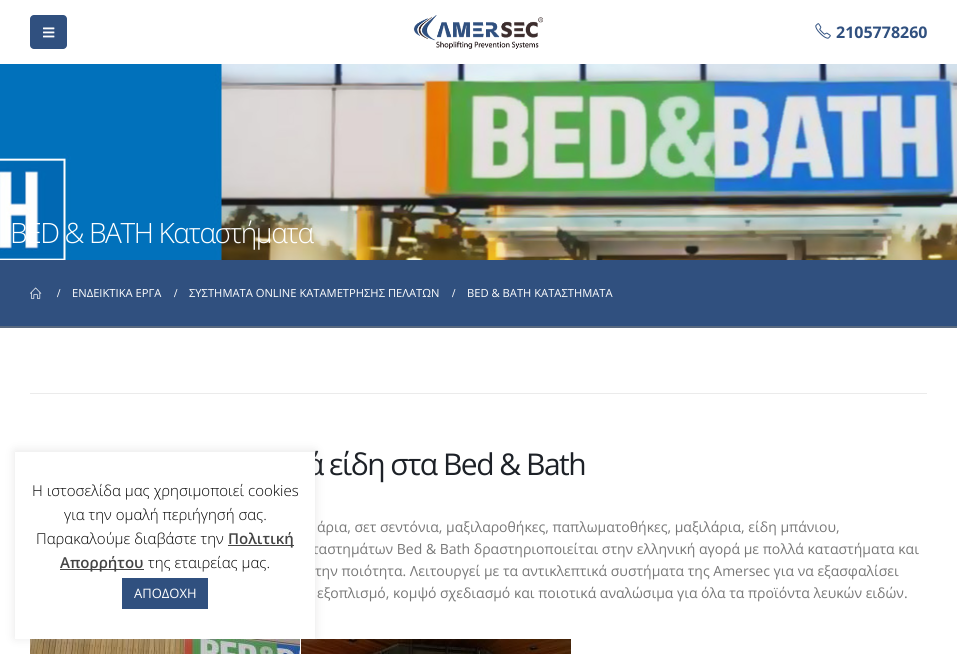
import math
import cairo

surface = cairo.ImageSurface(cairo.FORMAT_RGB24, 957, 654)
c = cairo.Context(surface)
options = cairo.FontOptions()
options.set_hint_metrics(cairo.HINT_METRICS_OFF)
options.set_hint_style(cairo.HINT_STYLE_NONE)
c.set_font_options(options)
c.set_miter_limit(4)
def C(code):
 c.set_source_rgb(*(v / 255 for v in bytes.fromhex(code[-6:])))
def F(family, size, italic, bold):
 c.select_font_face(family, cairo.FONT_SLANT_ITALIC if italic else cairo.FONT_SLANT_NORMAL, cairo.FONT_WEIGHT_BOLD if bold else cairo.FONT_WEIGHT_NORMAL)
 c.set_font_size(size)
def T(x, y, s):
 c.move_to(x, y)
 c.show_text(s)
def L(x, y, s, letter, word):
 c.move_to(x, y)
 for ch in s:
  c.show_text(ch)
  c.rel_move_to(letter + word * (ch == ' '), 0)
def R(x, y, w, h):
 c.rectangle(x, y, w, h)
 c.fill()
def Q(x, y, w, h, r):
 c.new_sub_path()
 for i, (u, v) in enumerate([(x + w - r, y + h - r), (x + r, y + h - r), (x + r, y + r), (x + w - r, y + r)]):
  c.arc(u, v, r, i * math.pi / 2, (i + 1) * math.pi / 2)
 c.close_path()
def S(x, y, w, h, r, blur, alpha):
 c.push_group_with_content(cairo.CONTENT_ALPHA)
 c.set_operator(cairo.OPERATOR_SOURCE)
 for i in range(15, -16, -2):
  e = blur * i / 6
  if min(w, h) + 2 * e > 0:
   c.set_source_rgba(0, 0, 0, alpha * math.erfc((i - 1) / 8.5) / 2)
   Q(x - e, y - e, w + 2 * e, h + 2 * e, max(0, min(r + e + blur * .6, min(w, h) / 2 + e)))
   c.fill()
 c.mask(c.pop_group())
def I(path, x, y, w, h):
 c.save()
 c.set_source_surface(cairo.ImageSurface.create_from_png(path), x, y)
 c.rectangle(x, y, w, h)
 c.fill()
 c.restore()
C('ffffff')
c.paint()
C('30507f')
Q(30,15,37,34,4)
c.fill()
I('1.png',43,27,12,11)
I('2.png',413,15,130,34)
I('3.png',815,23,16,16)
F('Open Sans',16,0,1)
T(836,38,'2105778260')
I('4.png',0,64,957,196)
F('Open Sans Light',28,0,0)
C('ffffff')
L(10,243,'BED & BATH Καταστήματα',-1.4,0)
C('30507f')
R(0,260,957,66)
C('59697f')
R(0,326,957,2)
I('5.png',30,287,12,12)
F('Liberation Serif',12,0,1)
C('ffffff')
T(57,297,'/')
F('Open Sans',11.2,0,0)
T(72,297,'ΕΝΔΕΙΚΤΙΚΑ ΕΡΓΑ')
F('Liberation Serif',12,0,1)
T(174,297,'/')
F('Open Sans',11.2,0,0)
T(189,297,'ΣΥΣΤΗΜΑΤΑ ONLINE ΚΑΤΑΜΕΤΡΗΣΗΣ ΠΕΛΑΤΩΝ')
F('Liberation Serif',12,0,1)
T(452,297,'/')
F('Open Sans',11.2,0,0)
T(467,297,'BED & BATH ΚΑΤΑΣΤΗΜΑΤΑ')
C('ebebeb')
R(30,393,897,1)
F('Open Sans',30,0,0)
C('1d2127')
L(306,475,'ά είδη στα Bed & Bath',-1.5,0)
F('Open Sans',14,0,0)
C('777777')
T(317,532,'άρια, σετ σεντόνια, μαξιλαροθήκες, παπλωματοθήκες, μαξιλάρια, είδη μπάνιου,')
T(312,554,'ταστημάτων Bed & Bath δραστηριοποιείται στην ελληνική αγορά με πολλά καταστήματα και')
T(315,576,'την ποιότητα. Λειτουργεί με τα αντικλεπτικά συστήματα της Amersec για να εξασφαλίσει')
T(317,598,'εξοπλισμό, κομψό σχεδιασμό και ποιοτικά αναλώσιμα για όλα τα προϊόντα λευκών ειδών.')
I('6.png',30,639,270,15)
I('7.png',301,639,270,15)
C('acabab')
S(15,451,300,187,0,5,.3)
C('ffffff')
R(15,452,300,187)
F('Open Sans Light',15,0,0)
C('000000')
T(32,496,'Η ιστοσελίδα μας χρησιμοποιεί cookies')
T(64,520,'για την ομαλή περιήγησή σας.')
T(36,544,'Παρακαλούμε διαβάστε την')
C('444444')
R(228,545,66,1)
F('Open Sans SemiBold',15,0,0)
T(228,544,'Πολιτική')
R(60,569,84,1)
T(60,568,'Απορρήτου')
F('Open Sans Light',15,0,0)
C('000000')
T(148,568,'της εταιρείας μας.')
C('30507f')
R(122,578,86,31)
F('Open Sans',13,0,0)
C('ffffff')
T(134,598,'ΑΠΟΔΟΧΗ')
surface.write_to_png('o.png')
